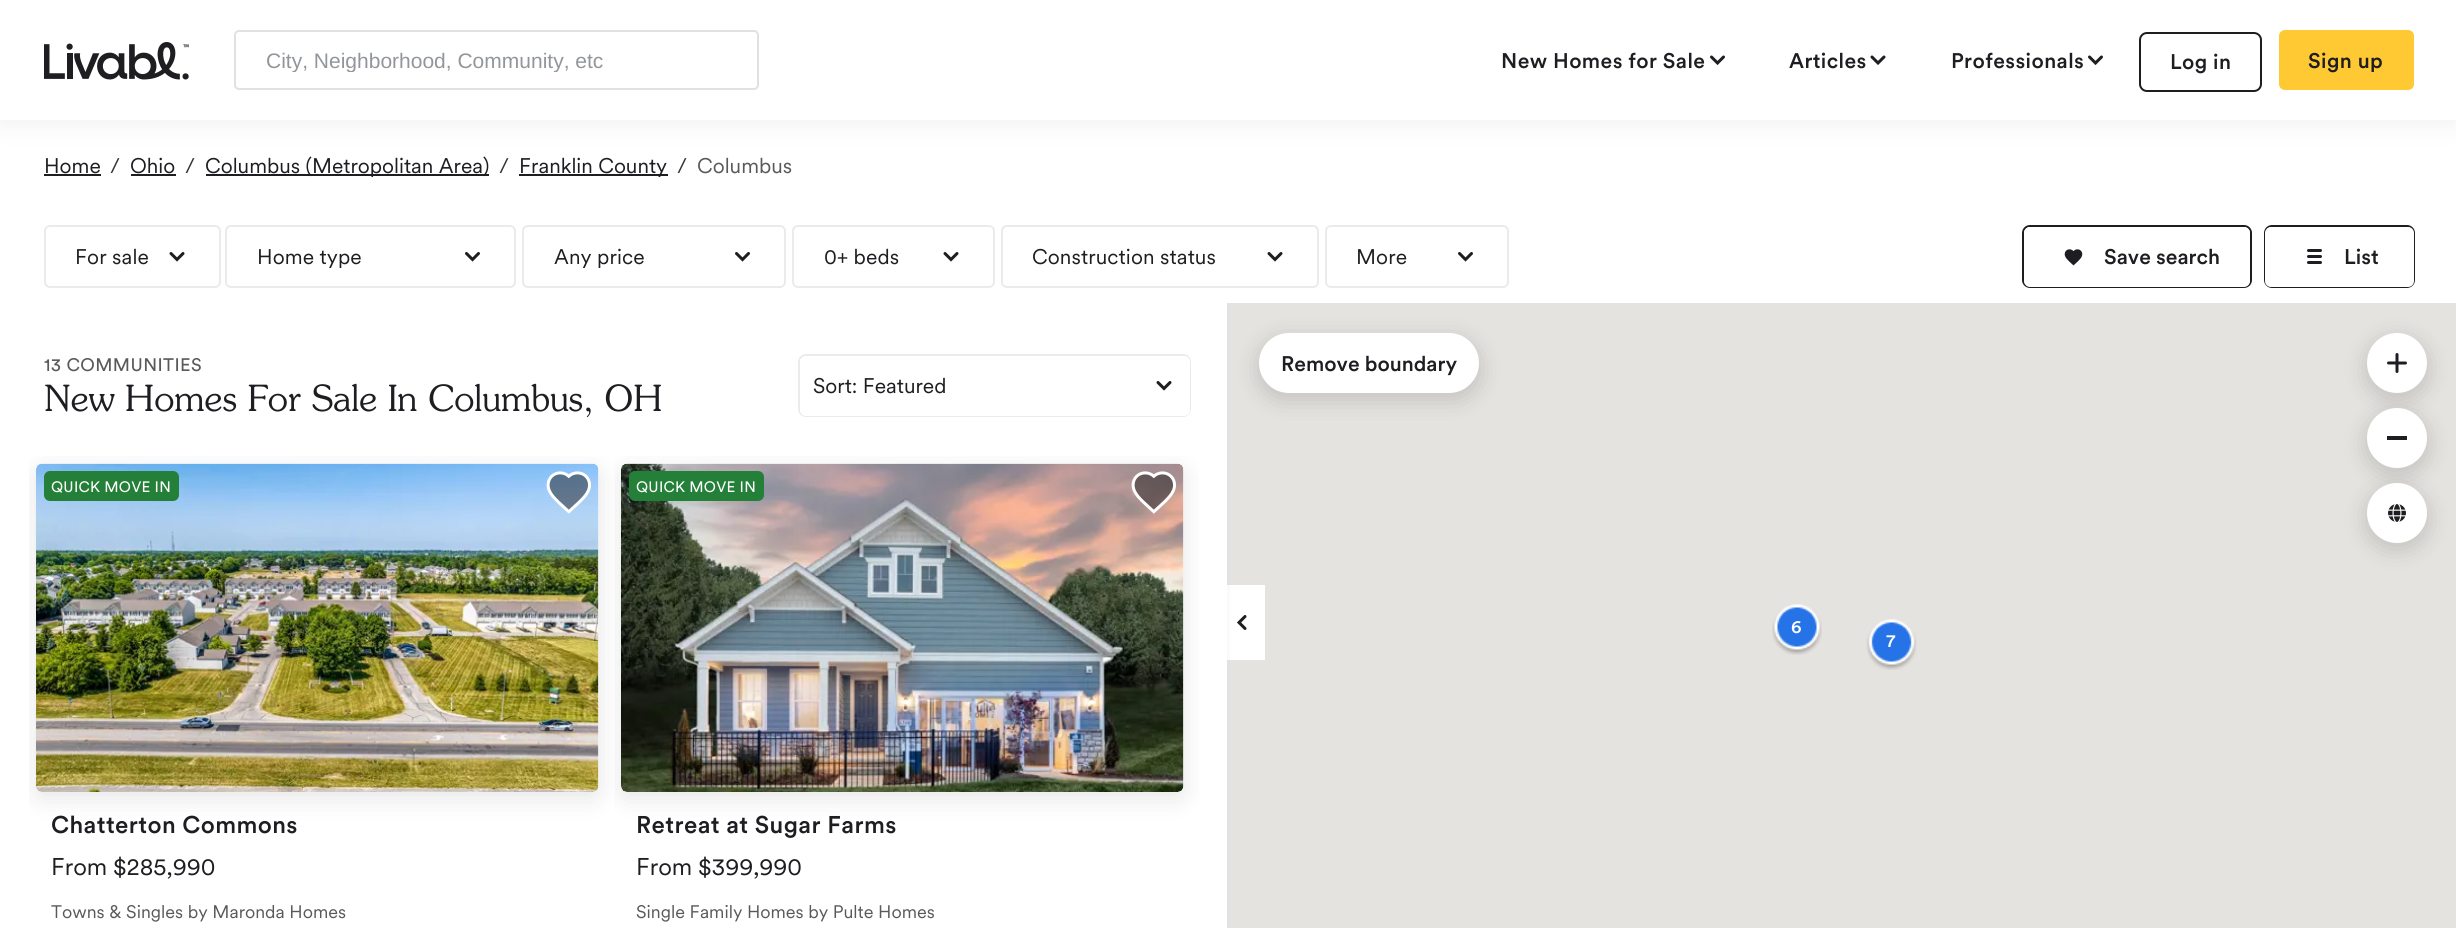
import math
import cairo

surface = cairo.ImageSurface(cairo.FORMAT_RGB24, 2456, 928)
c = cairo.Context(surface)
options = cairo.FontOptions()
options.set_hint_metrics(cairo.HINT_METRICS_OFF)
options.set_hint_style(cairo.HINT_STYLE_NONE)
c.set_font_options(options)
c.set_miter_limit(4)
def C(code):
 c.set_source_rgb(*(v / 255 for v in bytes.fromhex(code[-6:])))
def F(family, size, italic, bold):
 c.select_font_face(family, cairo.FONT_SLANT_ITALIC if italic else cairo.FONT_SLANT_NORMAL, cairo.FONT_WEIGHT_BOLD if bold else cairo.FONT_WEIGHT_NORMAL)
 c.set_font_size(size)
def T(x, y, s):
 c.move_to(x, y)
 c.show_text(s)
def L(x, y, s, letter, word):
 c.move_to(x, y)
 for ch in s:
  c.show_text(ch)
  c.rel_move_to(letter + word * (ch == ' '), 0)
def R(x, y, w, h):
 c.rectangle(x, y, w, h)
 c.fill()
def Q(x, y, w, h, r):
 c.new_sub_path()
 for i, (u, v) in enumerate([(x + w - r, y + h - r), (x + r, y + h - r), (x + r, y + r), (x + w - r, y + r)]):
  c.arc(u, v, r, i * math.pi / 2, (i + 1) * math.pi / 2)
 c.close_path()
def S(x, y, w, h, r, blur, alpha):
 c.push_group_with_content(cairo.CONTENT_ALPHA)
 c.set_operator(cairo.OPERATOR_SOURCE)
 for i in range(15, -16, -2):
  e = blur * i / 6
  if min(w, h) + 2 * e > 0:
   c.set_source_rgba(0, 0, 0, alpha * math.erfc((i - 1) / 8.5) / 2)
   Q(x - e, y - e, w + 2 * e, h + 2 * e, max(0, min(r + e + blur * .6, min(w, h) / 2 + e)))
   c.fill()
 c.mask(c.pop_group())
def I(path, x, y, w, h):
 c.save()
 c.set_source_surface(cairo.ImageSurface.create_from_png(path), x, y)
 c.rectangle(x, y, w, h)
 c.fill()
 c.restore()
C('ffffff')
c.paint()
C('000000')
S(0,6,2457,120,0,13,.05)
C('ffffff')
R(0,0,2456,120)
Q(235,31,523,58,4)
C('dfe2e5')
c.stroke()
c.save()
c.rectangle(266,48,441,24)
c.clip()
F('Liberation Sans',21,0,0)
C('92969a')
T(266,68,'City, Neighborhood, Community, etc')
c.restore()
I('1.png',44,42,145,38)
F('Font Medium',21,0,0)
C('1e1d21')
L(1501,68,'New Homes for Sale',.4,0)
c.new_path()
c.move_to(1711.5,57)
c.line_to(1717.5,63)
c.line_to(1723.5,57)
c.set_line_width(3)
c.set_line_cap(cairo.LINE_CAP_ROUND)
c.stroke()
L(1789,68,'Articles',.4,0)
c.new_path()
c.move_to(1872,57)
c.line_to(1878,63)
c.line_to(1884,57)
c.stroke()
L(1951,68,'Professionals',.4,0)
c.new_path()
c.move_to(2089.5,57)
c.line_to(2095.5,63)
c.line_to(2101.5,57)
c.stroke()
Q(2140,33,121,58,7)
c.set_line_width(2)
c.set_line_cap(cairo.LINE_CAP_BUTT)
c.stroke()
L(2170,69,'Log in',.4,0)
C('ffc933')
Q(2279,30,135,60,6)
c.fill()
C('1e1d21')
L(2308,68,'Sign up',.4,0)
F('Font',21,0,0)
T(44,173,'Home')
R(44,174,57,2)
C('333333')
T(110,173,'/')
C('1e1d21')
T(130,173,'Ohio')
R(131,174,45,2)
C('333333')
T(185,173,'/')
C('1e1d21')
R(206,174,283,2)
T(205,173,'Columbus (Metropolitan Area)')
C('333333')
T(499,173,'/')
C('1e1d21')
R(519,174,149,2)
T(519,173,'Franklin County')
C('333333')
T(677,173,'/')
C('595959')
T(697,173,'Columbus')
Q(45,226,175,61,5)
C('ebebeb')
c.stroke()
C('1e1d21')
L(75,264,'For sale',.1,0)
c.new_path()
c.move_to(171,253.5)
c.line_to(177,259.5)
c.line_to(183,253.5)
c.set_line_width(3)
c.set_line_cap(cairo.LINE_CAP_ROUND)
c.stroke()
Q(226,226,289,61,5)
C('ebebeb')
c.set_line_width(2)
c.set_line_cap(cairo.LINE_CAP_BUTT)
c.stroke()
C('1e1d21')
L(257,264,'Home type',.1,0)
c.new_path()
c.move_to(466.5,253.5)
c.line_to(472.5,259.5)
c.line_to(478.5,253.5)
c.set_line_width(3)
c.set_line_cap(cairo.LINE_CAP_ROUND)
c.stroke()
Q(523,226,262,61,5)
C('ebebeb')
c.set_line_width(2)
c.set_line_cap(cairo.LINE_CAP_BUTT)
c.stroke()
C('1e1d21')
L(554,264,'Any price',.1,0)
c.new_path()
c.move_to(736.5,253.5)
c.line_to(742.5,259.5)
c.line_to(748.5,253.5)
c.set_line_width(3)
c.set_line_cap(cairo.LINE_CAP_ROUND)
c.stroke()
Q(793,226,201,61,5)
C('ebebeb')
c.set_line_width(2)
c.set_line_cap(cairo.LINE_CAP_BUTT)
c.stroke()
C('1e1d21')
L(824,264,'0+ beds',.1,0)
c.new_path()
c.move_to(945,253.5)
c.line_to(951,259.5)
c.line_to(957,253.5)
c.set_line_width(3)
c.set_line_cap(cairo.LINE_CAP_ROUND)
c.stroke()
Q(1002,226,316,61,5)
C('ebebeb')
c.set_line_width(2)
c.set_line_cap(cairo.LINE_CAP_BUTT)
c.stroke()
C('1e1d21')
L(1032,264,'Construction status',.1,0)
c.new_path()
c.move_to(1269,253.5)
c.line_to(1275,259.5)
c.line_to(1281,253.5)
c.set_line_width(3)
c.set_line_cap(cairo.LINE_CAP_ROUND)
c.stroke()
Q(1326,226,182,61,5)
C('ebebeb')
c.set_line_width(2)
c.set_line_cap(cairo.LINE_CAP_BUTT)
c.stroke()
C('1e1d21')
L(1356,264,'More',.1,0)
c.new_path()
c.move_to(1459.5,253.5)
c.line_to(1465.5,259.5)
c.line_to(1471.5,253.5)
c.set_line_width(3)
c.set_line_cap(cairo.LINE_CAP_ROUND)
c.stroke()
Q(2023,226,228,61,7)
c.set_line_width(2)
c.set_line_cap(cairo.LINE_CAP_BUTT)
c.stroke()
C('ffffff')
Q(2024,227,226,60,6)
c.fill()
I('2.png',2064,249,19,17)
F('Font Medium',21,0,0)
C('1e1d21')
T(2104,264,'Save search')
Q(2265,226,149,61,7)
c.stroke()
C('ffffff')
Q(2265,227,149,60,6)
c.fill()
I('3.png',2307,249,15,15)
C('1e1d21')
L(2344,264,'List',.1,0)
C('dfe2e5')
R(1227,303,2,625)
F('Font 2',18,0,0)
C('595959')
L(44,371,'13 COMMUNITIES',.4,0)
F('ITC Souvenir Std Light',36,0,0)
C('1e1d21')
T(44,411,'New Homes For Sale In Columbus, OH')
Q(799,355,391,61,7)
C('ebebeb')
c.stroke()
C('ffffff')
Q(800,356,390,60,6)
c.fill()
F('Font',21,0,0)
C('1e1d21')
T(813,393,'Sort: Featured')
c.new_path()
c.move_to(1158,382.5)
c.line_to(1164,388.5)
c.line_to(1170,382.5)
c.set_line_width(3)
c.set_line_cap(cairo.LINE_CAP_ROUND)
c.stroke()
c.save()
Q(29,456,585,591,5)
c.clip()
C('000000')
S(36,470,563,328,6,12,.1)
c.restore()
I('5.png',36,463,563,329)
C('247f38')
Q(44,471,135,30,6)
c.fill()
F('Font 2',15,0,0)
C('ffffff')
L(51,492,'QUICK MOVE IN',.25,0)
c.save()
Q(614,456,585,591,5)
c.clip()
C('000000')
S(621,470,563,328,6,12,.1)
c.restore()
I('4.png',546,471,45,43)
F('Font Medium',24,0,0)
C('1e1d21')
L(51,833,'Chatterton Commons',.4,0)
F('Font',24,0,0)
T(51,875,'From $285,990')
F('Font',18,0,0)
C('595959')
T(51,918,'Towns & Singles by Maronda Homes')
I('7.png',621,463,563,329)
C('247f38')
Q(629,471,135,30,6)
c.fill()
F('Font 2',15,0,0)
C('ffffff')
L(636,492,'QUICK MOVE IN',.25,0)
I('6.png',1131,471,45,43)
F('Font Medium',24,0,0)
C('1e1d21')
L(636,833,'Retreat at Sugar Farms',.4,0)
F('Font',24,0,0)
T(636,875,'From $399,990')
F('Font',18,0,0)
C('595959')
T(636,918,'Single Family Homes by Pulte Homes')
C('e5e3df')
R(1229,303,1227,625)
C('ffffff')
R(1230,585,35,75)
C('fafafa')
R(1227,585,3,75)
c.new_path()
c.move_to(1245,616.5)
c.line_to(1239,622.5)
c.line_to(1245,628.5)
C('1e1d21')
c.stroke()
C('000000')
S(1259,339,220,60,30,12,.16)
C('ffffff')
Q(1259,333,220,60,30)
c.fill()
F('Font Medium',21,0,0)
C('1e1d21')
T(1281,371,'Remove boundary')
C('000000')
S(2367,339,60,60,30,12,.16)
C('ffffff')
c.arc(2397,363,30,0,2 * math.pi)
c.fill()
I('8.png',2387,353,20,20)
C('000000')
S(2367,414,60,60,30,12,.16)
C('ffffff')
c.arc(2397,438,30,0,2 * math.pi)
c.fill()
C('1e1d21')
R(2387,436,20,4)
C('000000')
S(2367,489,60,60,30,12,.16)
C('ffffff')
c.arc(2397,513,30,0,2 * math.pi)
c.fill()
I('9.png',2388,504,18,18)
I('10.png',1772,604,50,51)
F('Font Medium',18,0,0)
T(1791,633,'6')
I('11.png',1866,619,51,51)
T(1886,647,'7')
surface.write_to_png('o.png')
